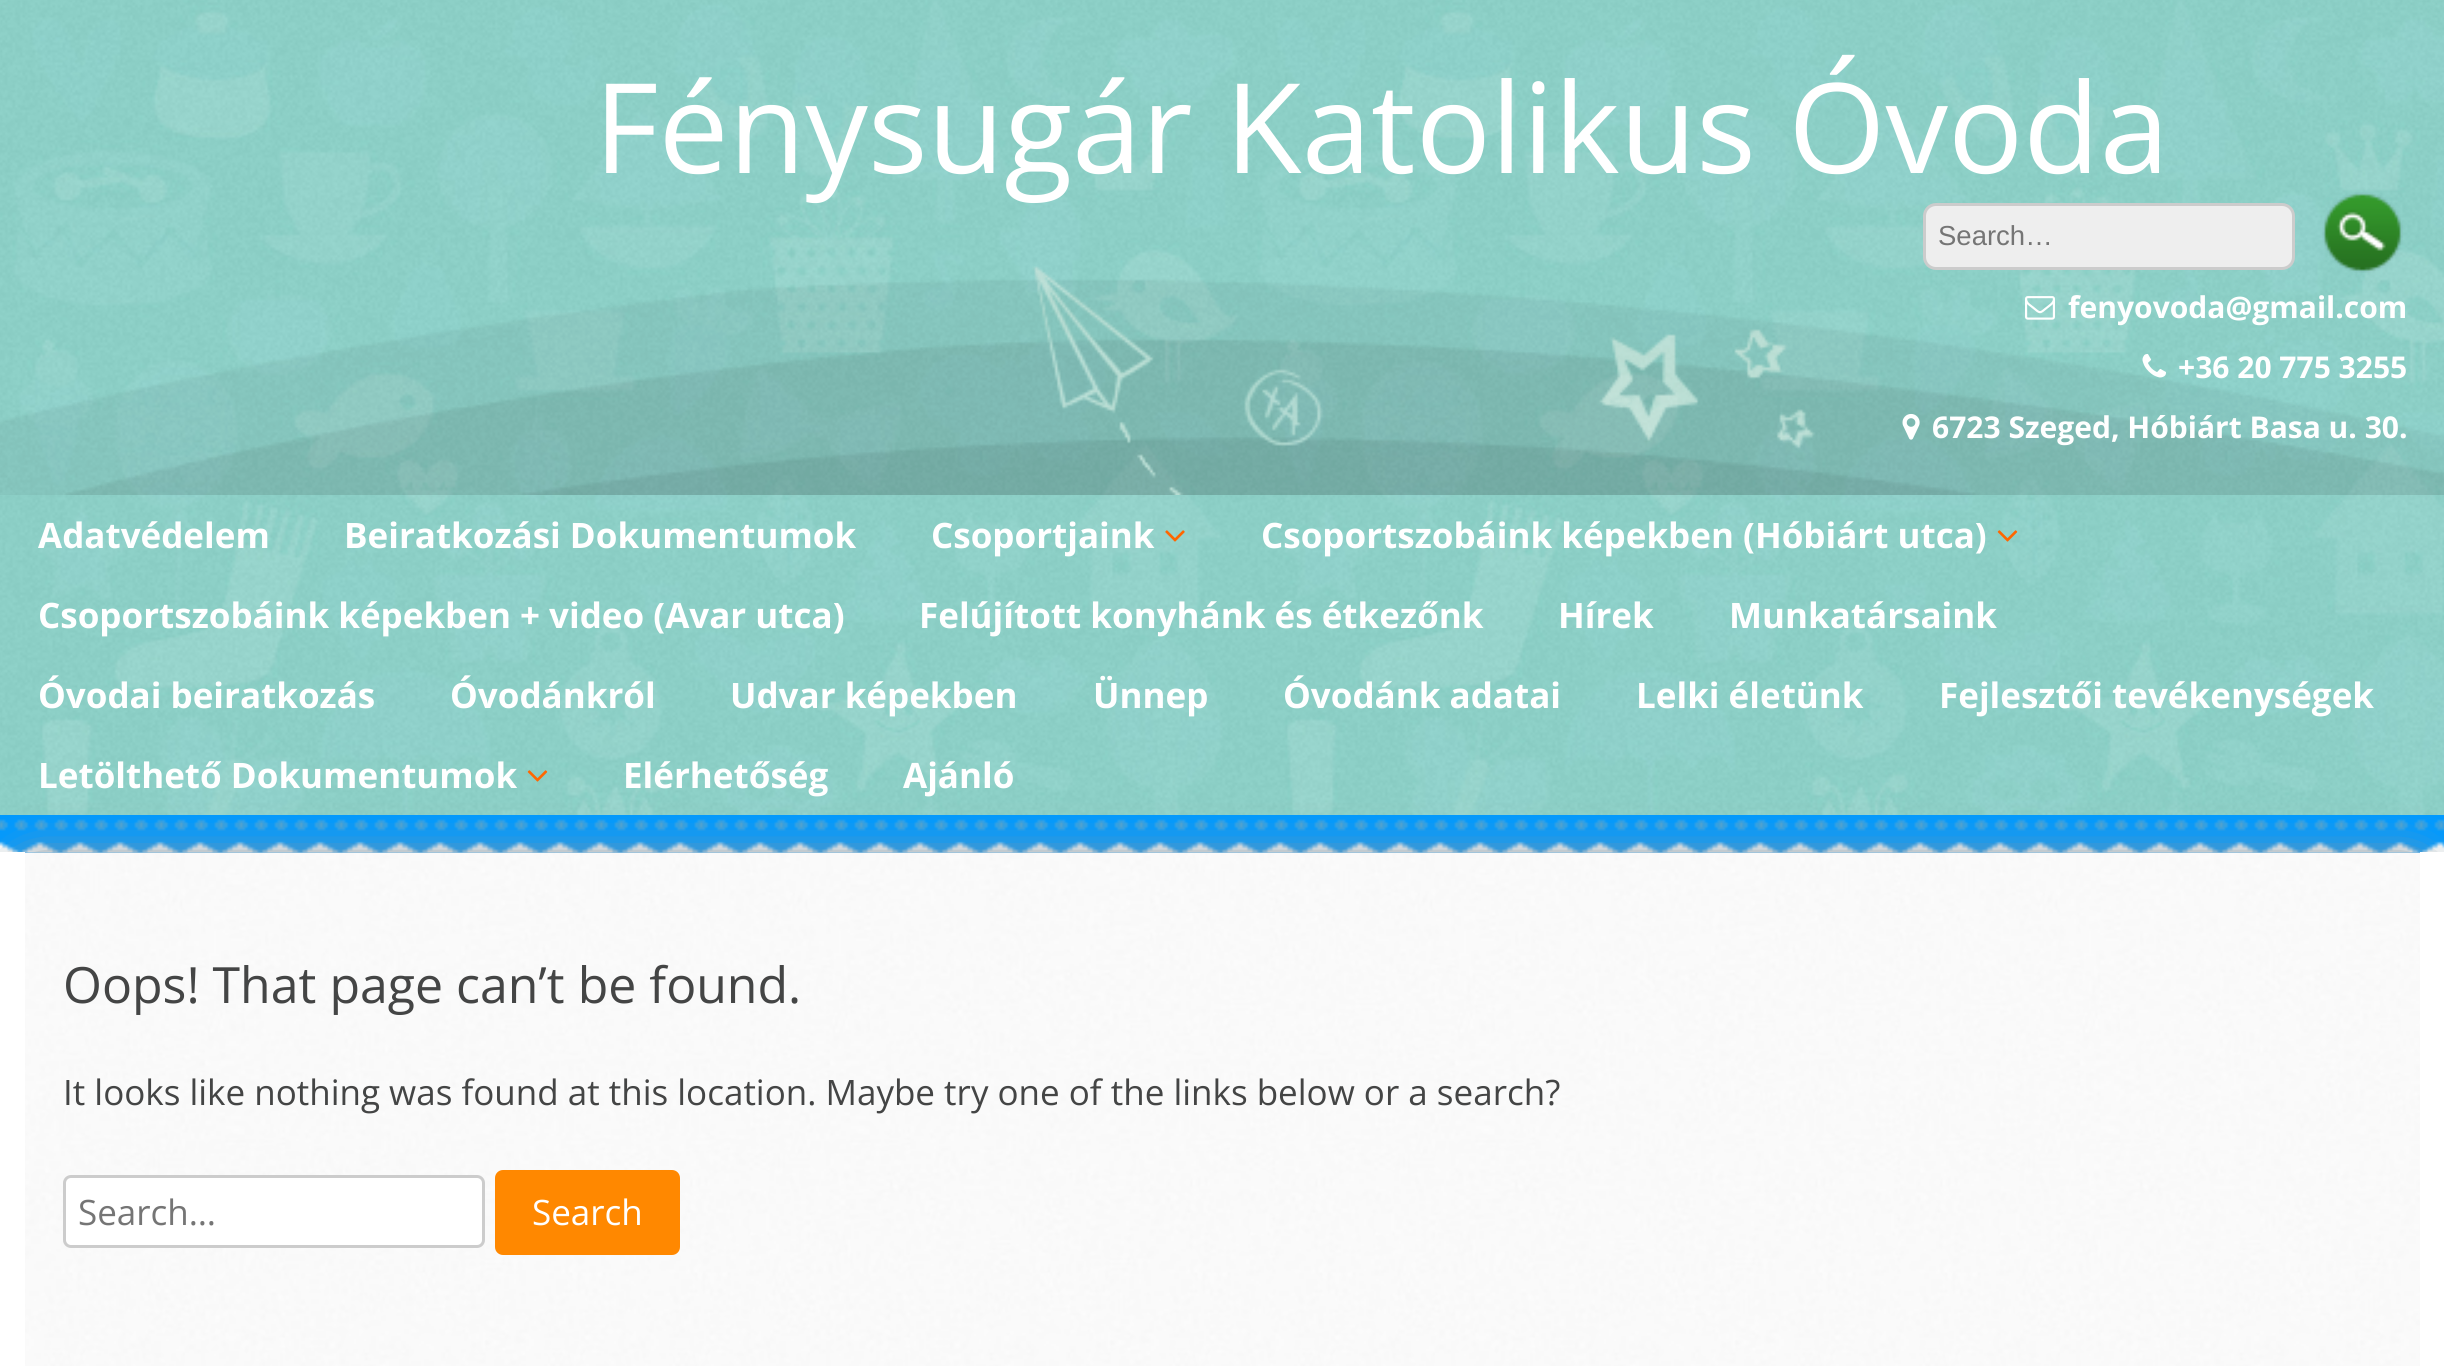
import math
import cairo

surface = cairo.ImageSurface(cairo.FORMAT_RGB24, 2444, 1366)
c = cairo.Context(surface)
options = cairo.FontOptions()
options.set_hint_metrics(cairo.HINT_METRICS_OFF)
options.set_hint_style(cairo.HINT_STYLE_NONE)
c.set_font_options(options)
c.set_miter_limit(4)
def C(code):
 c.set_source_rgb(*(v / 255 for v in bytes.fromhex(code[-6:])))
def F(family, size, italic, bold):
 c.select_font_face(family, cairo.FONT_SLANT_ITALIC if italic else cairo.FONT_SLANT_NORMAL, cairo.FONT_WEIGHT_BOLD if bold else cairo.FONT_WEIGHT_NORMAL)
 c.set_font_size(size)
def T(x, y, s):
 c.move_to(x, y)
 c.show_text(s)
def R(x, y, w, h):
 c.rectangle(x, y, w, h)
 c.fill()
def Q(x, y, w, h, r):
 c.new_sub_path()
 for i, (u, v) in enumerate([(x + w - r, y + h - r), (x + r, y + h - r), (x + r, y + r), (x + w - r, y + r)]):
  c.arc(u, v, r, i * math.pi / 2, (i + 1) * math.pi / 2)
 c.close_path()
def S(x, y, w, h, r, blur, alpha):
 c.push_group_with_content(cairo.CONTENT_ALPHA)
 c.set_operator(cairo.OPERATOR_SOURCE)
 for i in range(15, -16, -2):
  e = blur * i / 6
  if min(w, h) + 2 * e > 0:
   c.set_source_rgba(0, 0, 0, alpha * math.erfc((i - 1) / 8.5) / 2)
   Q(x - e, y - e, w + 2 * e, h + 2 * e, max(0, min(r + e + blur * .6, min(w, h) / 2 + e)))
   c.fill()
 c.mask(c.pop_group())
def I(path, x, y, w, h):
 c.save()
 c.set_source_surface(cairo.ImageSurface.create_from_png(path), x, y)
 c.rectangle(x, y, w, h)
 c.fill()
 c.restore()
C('ffffff')
c.paint()
I('1.png',0,0,2444,815)
I('2.png',0,266,2444,229)
F('Open Sans',125,0,0)
C('ffffff')
T(594,173,'Fénysugár Katolikus Óvoda')
C('eeeeee')
Q(1924.5,204.5,369,64,11.5)
c.fill_preserve()
C('cccccc')
c.set_line_width(3)
c.stroke()
F('Liberation Sans',27.5,0,0)
C('757575')
T(1938,245,'Search…')
I('3.png',2322,192,81,81)
I('4.png',2025,296,30,24)
F('Open Sans',30,0,1)
C('ffffff')
T(2068,318,'fenyovoda@gmail.com')
I('5.png',2142,353,24,25)
T(2178,378,'+36 20 775 3255')
I('6.png',1902,413,18,27)
T(1932,438,'6723 Szeged, Hóbiárt Basa u. 30.')
F('Open Sans',35,0,1)
T(38,548,'Adatvédelem')
T(344,548,'Beiratkozási Dokumentumok')
T(931,548,'Csoportjaink')
I('7.png',1165,530,20,12)
T(1261,548,'Csoportszobáink képekben (Hóbiárt utca)')
I('8.png',1997,530,21,12)
T(38,628,'Csoportszobáink képekben + video (Avar utca)')
T(919,628,'Felújított konyhánk és étkezőnk')
T(1558,628,'Hírek')
T(1729,628,'Munkatársaink')
T(38,708,'Óvodai beiratkozás')
T(450,708,'Óvodánkról')
T(730,708,'Udvar képekben')
T(1093,708,'Ünnep')
T(1283,708,'Óvodánk adatai')
T(1636,708,'Lelki életünk')
T(1939,708,'Fejlesztői tevékenységek')
T(38,788,'Letölthető Dokumentumok')
I('9.png',527,770,21,12)
C('0099ff')
R(0,815,2444,38)
I('10.png',0,819,2444,34)
C('85969f')
S(0,853,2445,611,38,20,1)
C('ffffff')
T(623,788,'Elérhetőség')
T(903,788,'Ajánló')
I('11.png',25,852,2395,514)
c.set_fill_rule(cairo.FILL_RULE_EVEN_ODD)
c.new_path()
c.move_to(0,852)
c.line_to(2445,852)
c.line_to(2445,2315)
c.curve_to(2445,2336,2428,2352,2408,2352)
c.line_to(38,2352)
c.curve_to(17,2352,0,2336,0,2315)
c.close_path()
c.move_to(25,852)
c.line_to(2420,852)
c.line_to(2420,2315)
c.curve_to(2420,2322,2414,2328,2408,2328)
c.line_to(38,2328)
c.curve_to(31,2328,25,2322,25,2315)
c.close_path()
c.fill()
F('Open Sans',50,0,0)
C('444545')
T(63,1003,'Oops! That page can’t be found.')
F('Open Sans',35,0,0)
T(63,1105,'It looks like nothing was found at this location. Maybe try one of the links below or a search?')
C('ffffff')
Q(64.5,1176.5,419,70,6.5)
c.fill_preserve()
C('cccccc')
c.stroke()
C('757575')
T(78,1225,'Search…')
C('ff8800')
Q(495,1170,185,85,8)
c.fill()
C('ffffff')
T(532,1225,'Search')
surface.write_to_png('o.png')
